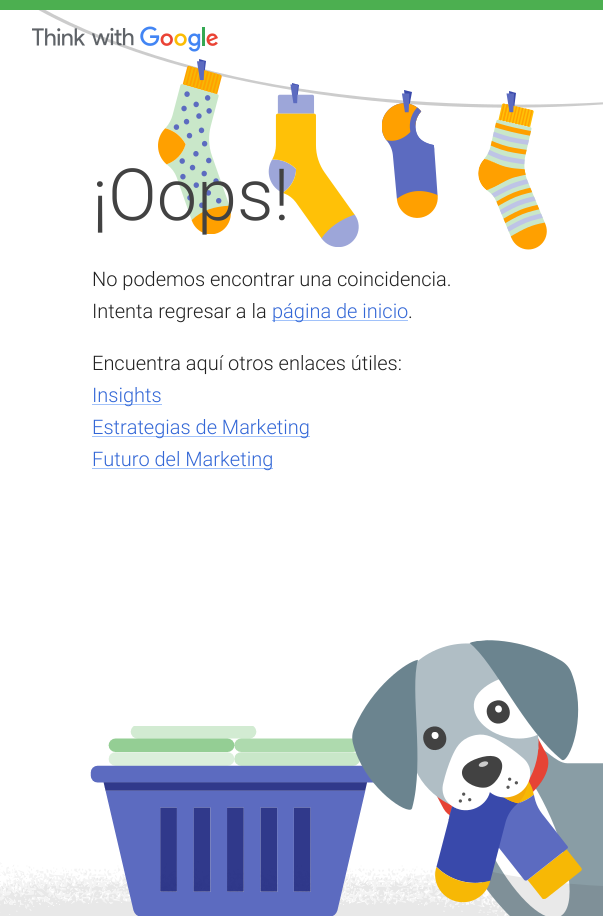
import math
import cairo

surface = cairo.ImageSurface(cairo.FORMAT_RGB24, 603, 916)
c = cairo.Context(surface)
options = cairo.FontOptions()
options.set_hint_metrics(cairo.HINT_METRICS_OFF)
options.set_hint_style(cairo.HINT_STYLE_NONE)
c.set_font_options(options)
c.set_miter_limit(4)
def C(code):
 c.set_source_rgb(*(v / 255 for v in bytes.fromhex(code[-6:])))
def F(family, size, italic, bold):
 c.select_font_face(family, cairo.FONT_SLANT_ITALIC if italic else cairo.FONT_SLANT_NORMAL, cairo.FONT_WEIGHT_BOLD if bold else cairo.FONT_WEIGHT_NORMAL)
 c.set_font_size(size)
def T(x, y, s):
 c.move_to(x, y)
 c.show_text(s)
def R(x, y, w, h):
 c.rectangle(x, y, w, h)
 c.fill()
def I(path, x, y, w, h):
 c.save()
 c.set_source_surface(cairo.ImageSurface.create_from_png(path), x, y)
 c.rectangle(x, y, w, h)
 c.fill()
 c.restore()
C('ffffff')
c.paint()
C('cccccc')
c.new_path()
c.move_to(-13,-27)
c.line_to(-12,-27)
c.curve_to(49,21,142,58,256,81)
c.curve_to(364,102,486,109,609,102)
c.line_to(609,104)
c.curve_to(512,111,414,108,317,94)
c.curve_to(256,85,195,72,136,52)
c.curve_to(83,34,27,9,-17,-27)
c.close_path()
c.fill()
C('4caf50')
R(0,0,603,10)
C('3949ab')
c.new_path()
c.move_to(509,91)
c.line_to(516,93)
c.line_to(514,109)
c.line_to(510,108)
c.close_path()
c.move_to(404,90)
c.line_to(412,92)
c.line_to(409,108)
c.line_to(406,107)
c.close_path()
c.move_to(292,83)
c.line_to(299,85)
c.line_to(297,101)
c.line_to(293,100)
c.close_path()
c.move_to(199,59)
c.line_to(206,61)
c.line_to(204,77)
c.line_to(200,76)
c.close_path()
c.fill()
I('1.png',158,61,73,173)
I('2.png',268,84,91,163)
I('3.png',382,93,56,125)
I('4.png',478,93,69,157)
I('5.png',32,26,186,26)
F('Roboto Light',72,0,0)
C('424242')
T(92,220,'¡Oops!')
F('Roboto Light',20,0,0)
C('212121')
T(92,286,'No podemos encontrar una coincidencia.')
T(92,318,'Intenta regresar a la')
C('a1c2fa')
R(272,320,136,1)
C('3367d6')
T(272,318,'página de inicio')
C('212121')
T(408,318,'.')
T(92,370,'Encuentra aquí otros enlaces útiles:')
C('a1c2fa')
R(92,404,70,1)
C('3367d6')
T(92,402,'Insights')
C('a1c2fa')
R(92,436,218,1)
C('3367d6')
T(92,434,'Estrategias de Marketing')
C('a1c2fa')
R(92,468,181,1)
C('3367d6')
T(92,466,'Futuro del Marketing')
I('8.png',0,726,510,190)
I('7.png',449,749,154,167)
I('6.png',352,640,230,263)
C('424242')
c.new_path()
c.move_to(494.5,701)
c.curve_to(509,696,516.5,718.5,502,723)
c.curve_to(487.5,727.5,480,705.5,494.5,701)
c.close_path()
c.fill()
C('ffffff')
c.new_path()
c.move_to(498,705.5)
c.curve_to(502.5,705,503.5,712,499,712.5)
c.curve_to(494.5,713,493.5,706,498,705.5)
c.close_path()
c.fill()
C('424242')
c.new_path()
c.move_to(431,727)
c.curve_to(445.5,722.5,453,744.5,438.5,749.5)
c.curve_to(424,754,416.5,732,431,727)
c.close_path()
c.fill()
C('ffffff')
c.new_path()
c.move_to(434.5,732)
c.curve_to(439.5,731.5,440,738.5,435.5,739)
c.curve_to(431,739.5,430,732,434.5,732)
c.close_path()
c.fill()
surface.write_to_png('o.png')
